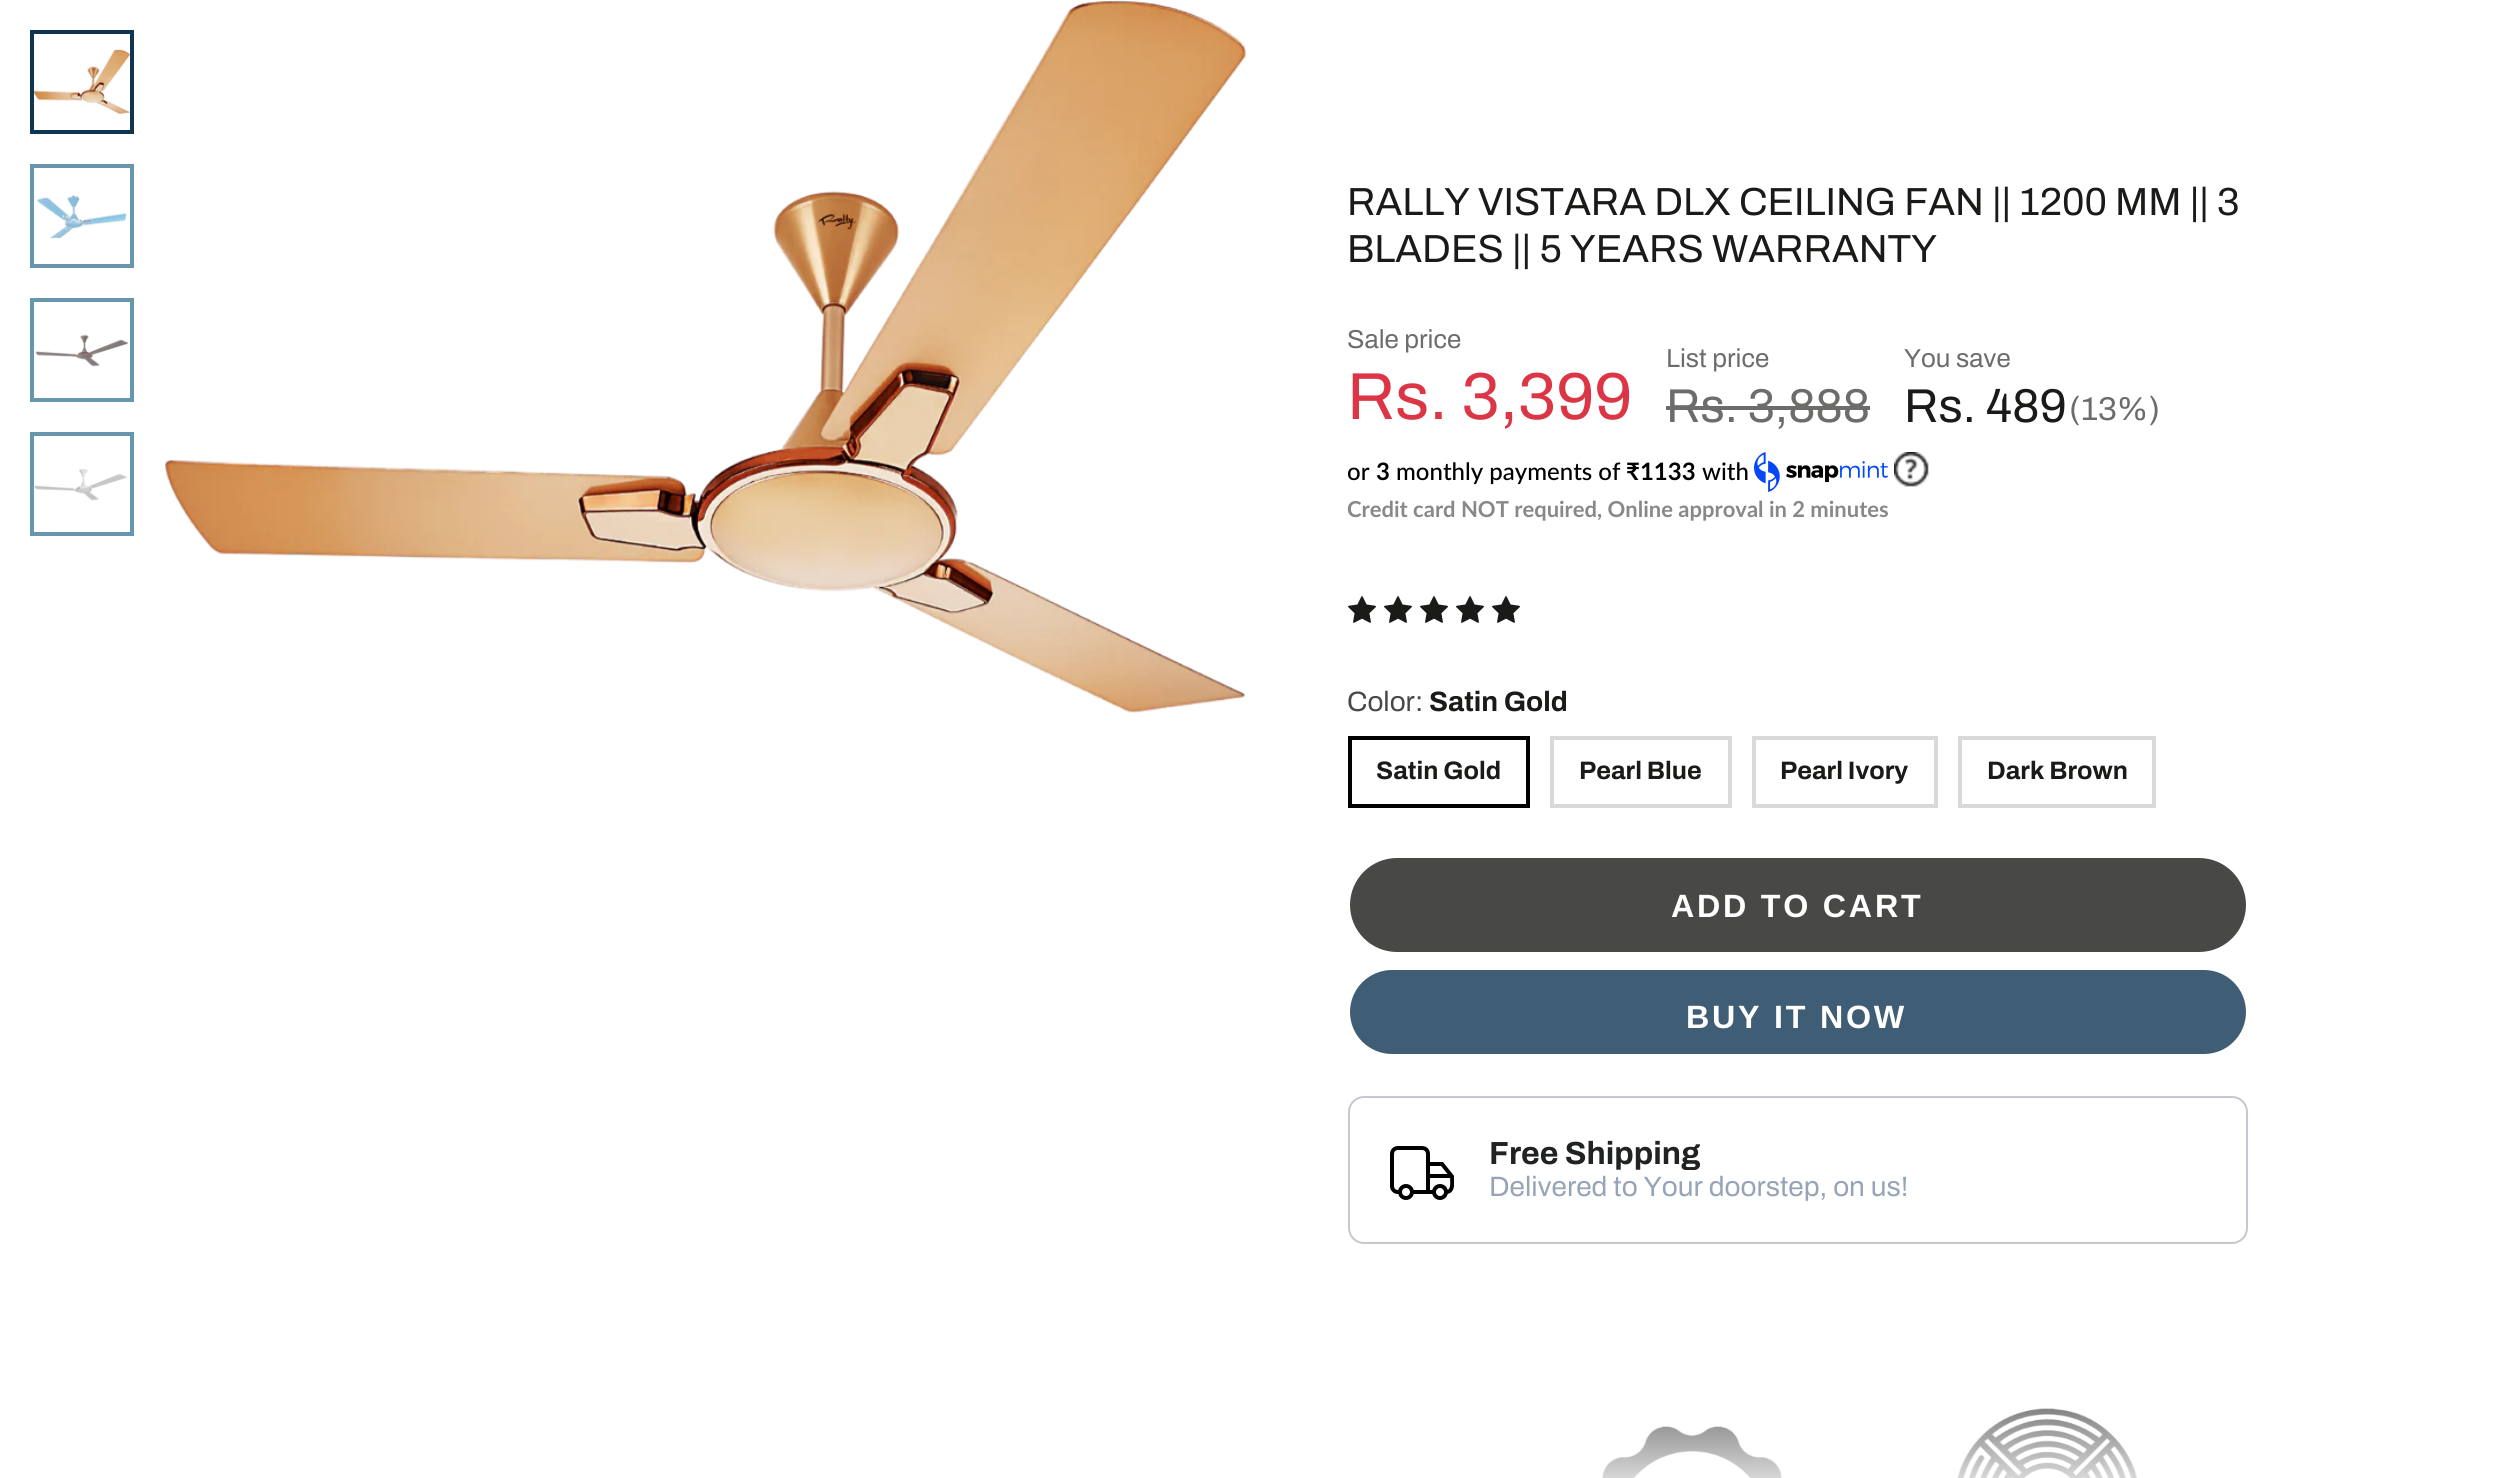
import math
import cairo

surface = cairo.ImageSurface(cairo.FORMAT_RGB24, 2497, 1478)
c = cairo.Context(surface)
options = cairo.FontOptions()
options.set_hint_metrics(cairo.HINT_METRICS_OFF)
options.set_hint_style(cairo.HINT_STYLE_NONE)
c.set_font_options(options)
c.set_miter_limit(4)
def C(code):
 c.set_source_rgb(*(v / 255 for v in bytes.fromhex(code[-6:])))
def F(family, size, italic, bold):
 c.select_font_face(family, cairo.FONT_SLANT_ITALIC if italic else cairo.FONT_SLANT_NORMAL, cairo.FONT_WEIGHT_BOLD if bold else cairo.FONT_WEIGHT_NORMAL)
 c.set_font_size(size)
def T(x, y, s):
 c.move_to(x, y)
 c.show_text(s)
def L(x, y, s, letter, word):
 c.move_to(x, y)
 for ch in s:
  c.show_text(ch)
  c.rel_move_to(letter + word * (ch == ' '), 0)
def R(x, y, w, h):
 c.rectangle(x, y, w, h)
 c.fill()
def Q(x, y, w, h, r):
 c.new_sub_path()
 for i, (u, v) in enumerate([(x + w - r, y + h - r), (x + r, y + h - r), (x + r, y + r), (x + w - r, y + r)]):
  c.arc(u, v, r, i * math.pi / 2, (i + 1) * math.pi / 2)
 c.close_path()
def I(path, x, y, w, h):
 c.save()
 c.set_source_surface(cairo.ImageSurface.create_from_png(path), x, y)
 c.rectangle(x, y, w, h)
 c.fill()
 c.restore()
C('ffffff')
c.paint()
c.rectangle(32,32,100,100)
C('0f3551')
c.set_line_width(4)
c.stroke()
I('1.png',34,49,96,65)
c.rectangle(32,166,100,100)
C('6697ac')
c.stroke()
I('2.png',36,195,91,44)
c.rectangle(32,300,100,100)
c.stroke()
I('3.png',35,334,93,33)
c.rectangle(32,434,100,100)
c.stroke()
I('4.png',34,468,93,33)
I('5.png',165,0,1082,713)
F('Archivo',39.2,0,0)
C('1a1b18')
T(1347,215,'RALLY VISTARA DLX CEILING FAN || 1200 MM || 3')
T(1347,262,'BLADES || 5 YEARS WARRANTY')
F('Archivo',26,0,0)
C('6c6d6b')
T(1347,348,'Sale price')
F('Archivo',66.5,0,0)
C('dc3545')
T(1347,419,'Rs. 3,399')
F('Archivo',26,0,0)
C('6c6d6b')
T(1666,367,'List price')
F('Archivo',47.5,0,0)
T(1666,422,'Rs. 3,888')
R(1666,406,204,4)
F('Archivo',26,0,0)
T(1904,367,'You save')
F('Archivo',47.5,0,0)
C('1a1b18')
T(1904,422,'Rs. 489')
F('Archivo',33,0,0)
C('6c6d6b')
T(2069,420,'(13%)')
F('Lato Medium',24,0,0)
C('000000')
T(1347,480,'or')
F('Lato',24,0,1)
T(1376,480,'3')
F('Lato Medium',24,0,0)
T(1396,480,'monthly payments of')
F('Lato',24,0,1)
T(1626,480,'₹1133')
F('Lato Medium',24,0,0)
T(1702,480,'with')
I('6.png',1754,452,134,40)
I('7.png',1894,452,35,35)
F('Lato',22,0,1)
C('888888')
T(1347,517,'Credit card NOT required, Online approval in 2 minutes')
I('8.png',1348,596,28,27)
I('8.png',1384,596,28,27)
I('8.png',1420,596,28,27)
I('8.png',1456,596,28,27)
I('8.png',1492,596,28,27)
F('Archivo',28,0,0)
C('484946')
T(1347,711,'Color:')
F('Archivo',28,0,1)
C('1a1b18')
T(1429,711,'Satin Gold')
c.rectangle(1350,738,178,68)
C('000000')
c.stroke()
F('Archivo',25.25,0,1)
C('1a1b18')
T(1376,779,'Satin Gold')
c.rectangle(1552,738,178,68)
C('d9d9d9')
c.stroke()
C('1a1b18')
T(1579,779,'Pearl Blue')
c.rectangle(1754,738,182,68)
C('d9d9d9')
c.stroke()
C('1a1b18')
T(1780,779,'Pearl Ivory')
c.rectangle(1960,738,194,68)
C('d9d9d9')
c.stroke()
C('1a1b18')
T(1987,779,'Dark Brown')
C('484946')
Q(1350,858,896,94,47)
c.fill()
F('Liberation Sans',32.25,0,1)
C('ffffff')
L(1671,917,'ADD TO CART',2.75,0)
C('3f5d74')
Q(1350,970,896,84,42)
c.fill()
C('ffffff')
L(1686,1028,'BUY IT NOW',2.75,0)
Q(1349,1097,898,146,15)
C('c5c8d1')
c.set_line_width(2)
c.stroke()
c.arc(1440,1192,6,0,2 * math.pi)
C('000000')
c.set_line_width(4)
c.stroke()
c.arc(1406,1192,6,0,2 * math.pi)
c.stroke()
c.new_path()
c.move_to(1400,1192)
c.line_to(1398,1192)
c.curve_to(1394.5,1192,1392,1189.5,1392,1186)
c.line_to(1392,1154)
c.curve_to(1392,1150.5,1394.5,1148,1398,1148)
c.line_to(1422,1148)
c.curve_to(1425.5,1148,1428,1150.5,1428,1154)
c.line_to(1428,1192)
c.line_to(1412,1192)
c.stroke()
c.save()
c.rectangle(1390,1138,64,64)
c.clip()
c.new_path()
c.move_to(1434,1192)
c.line_to(1428,1192)
c.line_to(1428,1164)
c.line_to(1442,1164)
c.line_to(1452,1176.5)
c.curve_to(1452,1181.5,1454,1192,1446,1192)
c.stroke()
c.restore()
R(1428,1174,24,4)
F('Archivo',32,0,1)
C('202223')
T(1489,1164,'Free Shipping')
F('Archivo',28,0,0)
C('96a4b6')
T(1489,1196,'Delivered to Your doorstep, on us!')
I('9.png',1601,1426,181,52)
I('10.png',1957,1408,181,70)
gradient = cairo.LinearGradient(1874,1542,1874,1342)
gradient.add_color_stop_rgba(.15,1,1,1,1)
gradient.add_color_stop_rgba(1,1,1,1,0)
c.set_source(gradient)
R(1601,1408,537,70)
surface.write_to_png('o.png')
